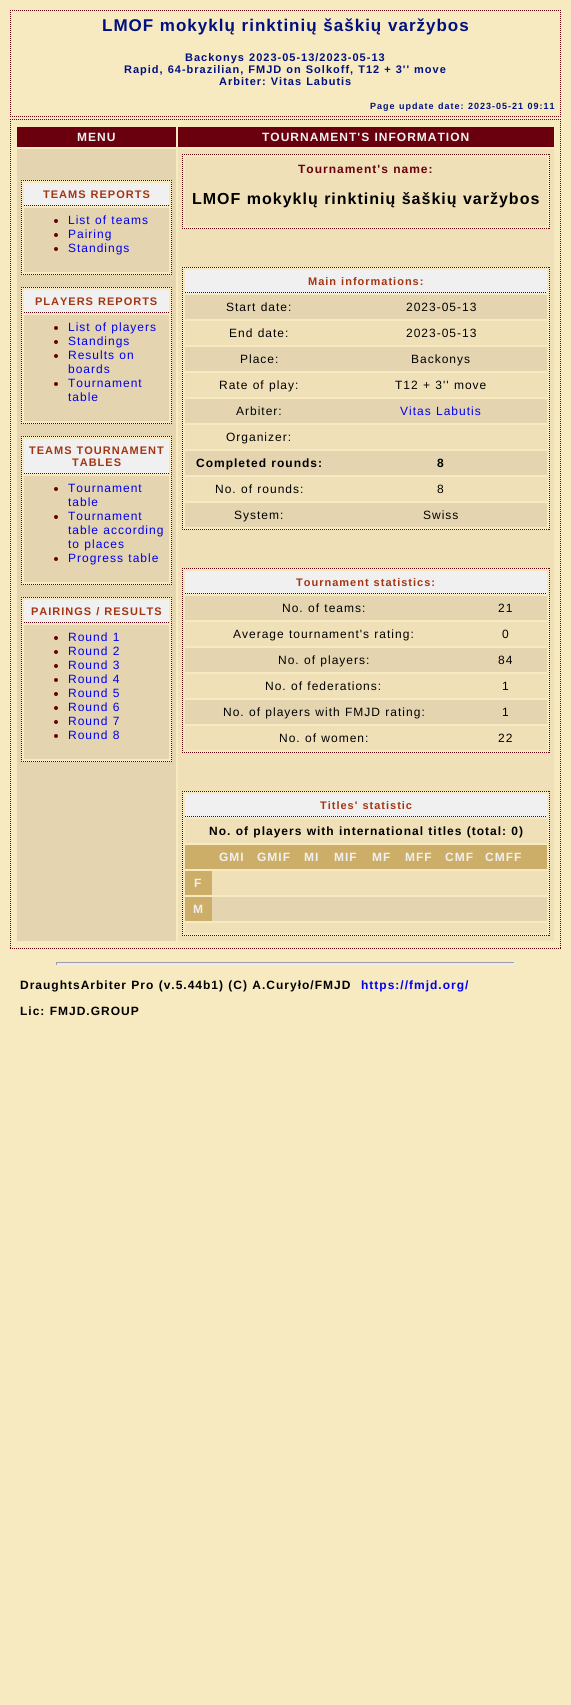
import math
import cairo

surface = cairo.ImageSurface(cairo.FORMAT_RGB24, 571, 1705)
c = cairo.Context(surface)
options = cairo.FontOptions()
options.set_hint_metrics(cairo.HINT_METRICS_OFF)
options.set_hint_style(cairo.HINT_STYLE_NONE)
c.set_font_options(options)
c.set_miter_limit(4)
def C(code):
 c.set_source_rgb(*(v / 255 for v in bytes.fromhex(code[-6:])))
def F(family, size, italic, bold):
 c.select_font_face(family, cairo.FONT_SLANT_ITALIC if italic else cairo.FONT_SLANT_NORMAL, cairo.FONT_WEIGHT_BOLD if bold else cairo.FONT_WEIGHT_NORMAL)
 c.set_font_size(size)
def L(x, y, s, letter, word):
 c.move_to(x, y)
 for ch in s:
  c.show_text(ch)
  c.rel_move_to(letter + word * (ch == ' '), 0)
def R(x, y, w, h):
 c.rectangle(x, y, w, h)
 c.fill()
C('f8eac0')
c.paint()
c.new_path()
c.move_to(10,10.5)
c.line_to(561,10.5)
C('6a000d')
c.set_line_width(1)
c.set_dash([1,1])
c.stroke()
c.new_path()
c.move_to(560.5,10)
c.line_to(560.5,117)
c.stroke()
c.new_path()
c.move_to(10,116.5)
c.line_to(561,116.5)
c.stroke()
c.new_path()
c.move_to(10.5,10)
c.line_to(10.5,117)
c.stroke()
F('Liberation Sans',17,0,1)
C('001080')
L(102,31,'LMOF mokyklų rinktinių šaškių varžybos',1,0)
F('Liberation Sans',11,0,1)
L(185,61,'Backonys 2023-05-13/2023-05-13',1,0)
L(124,73,'Rapid, 64-brazilian, FMJD on Solkoff, T12 + 3\'\' move',1,0)
L(219,85,'Arbiter: Vitas Labutis',1,0)
F('Liberation Sans',9,0,1)
L(370,109,'Page update date: 2023-05-21 09:11',1,0)
c.new_path()
c.move_to(10,119.5)
c.line_to(561,119.5)
C('6a000d')
c.stroke()
c.new_path()
c.move_to(560.5,119)
c.line_to(560.5,949)
c.stroke()
c.new_path()
c.move_to(10,948.5)
c.line_to(561,948.5)
c.stroke()
c.new_path()
c.move_to(10.5,119)
c.line_to(10.5,949)
c.stroke()
R(17,127,159,20)
F('Liberation Sans',12,0,1)
C('f0f0f0')
L(77,141,'MENU',1,0)
C('6a000d')
R(178,127,376,20)
C('f0f0f0')
L(262,141,'TOURNAMENT\'S INFORMATION',1,0)
C('e4d4b0')
R(17,149,159,792)
C('f8eac0')
R(21,180,151,95)
c.new_path()
c.move_to(21,180.5)
c.line_to(172,180.5)
C('6a000d')
c.stroke()
c.new_path()
c.move_to(171.5,180)
c.line_to(171.5,275)
c.stroke()
c.new_path()
c.move_to(21,274.5)
c.line_to(172,274.5)
c.stroke()
c.new_path()
c.move_to(21.5,180)
c.line_to(21.5,275)
c.stroke()
C('f0f0f0')
R(24,183,145,23)
c.new_path()
c.move_to(24,205.5)
c.line_to(169,205.5)
C('6a000d')
c.stroke()
F('Liberation Sans',11,0,1)
C('a53512')
L(43,198,'TEAMS REPORTS',1,0)
C('e4d4b0')
R(24,208,145,64)
C('6a000d')
c.new_path()
c.arc(56,221,2,0,2 * math.pi)
c.fill()
F('Liberation Sans',12,0,0)
C('0000f0')
L(68,224,'List of teams',1,0)
C('6a000d')
c.new_path()
c.arc(56,235,2,0,2 * math.pi)
c.fill()
C('0000f0')
L(68,238,'Pairing',1,0)
C('6a000d')
c.new_path()
c.arc(56,249,2,0,2 * math.pi)
c.fill()
C('0000f0')
L(68,252,'Standings',1,0)
C('f8eac0')
R(21,287,151,137)
c.new_path()
c.move_to(21,287.5)
c.line_to(172,287.5)
C('6a000d')
c.stroke()
c.new_path()
c.move_to(171.5,287)
c.line_to(171.5,424)
c.stroke()
c.new_path()
c.move_to(21,423.5)
c.line_to(172,423.5)
c.stroke()
c.new_path()
c.move_to(21.5,287)
c.line_to(21.5,424)
c.stroke()
C('f0f0f0')
R(24,290,145,23)
c.new_path()
c.move_to(24,312.5)
c.line_to(169,312.5)
C('6a000d')
c.stroke()
F('Liberation Sans',11,0,1)
C('a53512')
L(35,305,'PLAYERS REPORTS',1,0)
C('e4d4b0')
R(24,315,145,106)
C('6a000d')
c.new_path()
c.arc(56,328,2,0,2 * math.pi)
c.fill()
F('Liberation Sans',12,0,0)
C('0000f0')
L(68,331,'List of players',1,0)
C('6a000d')
c.new_path()
c.arc(56,342,2,0,2 * math.pi)
c.fill()
C('0000f0')
L(68,345,'Standings',1,0)
C('6a000d')
c.new_path()
c.arc(56,356,2,0,2 * math.pi)
c.fill()
C('0000f0')
L(68,359,'Results on',1,0)
L(68,373,'boards',1,0)
C('6a000d')
c.new_path()
c.arc(56,384,2,0,2 * math.pi)
c.fill()
C('0000f0')
L(68,387,'Tournament',1,0)
L(68,401,'table',1,0)
C('f8eac0')
R(21,436,151,149)
c.new_path()
c.move_to(21,436.5)
c.line_to(172,436.5)
C('6a000d')
c.stroke()
c.new_path()
c.move_to(171.5,436)
c.line_to(171.5,585)
c.stroke()
c.new_path()
c.move_to(21,584.5)
c.line_to(172,584.5)
c.stroke()
c.new_path()
c.move_to(21.5,436)
c.line_to(21.5,585)
c.stroke()
C('f0f0f0')
R(24,439,145,35)
c.new_path()
c.move_to(24,473.5)
c.line_to(169,473.5)
C('6a000d')
c.stroke()
F('Liberation Sans',11,0,1)
C('a53512')
L(29,454,'TEAMS TOURNAMENT',1,0)
L(72,466,'TABLES',1,0)
C('e4d4b0')
R(24,476,145,106)
C('6a000d')
c.new_path()
c.arc(56,489,2,0,2 * math.pi)
c.fill()
F('Liberation Sans',12,0,0)
C('0000f0')
L(68,492,'Tournament',1,0)
L(68,506,'table',1,0)
C('6a000d')
c.new_path()
c.arc(56,517,2,0,2 * math.pi)
c.fill()
C('0000f0')
L(68,520,'Tournament',1,0)
L(68,534,'table according',1,0)
L(68,548,'to places',1,0)
C('6a000d')
c.new_path()
c.arc(56,559,2,0,2 * math.pi)
c.fill()
C('0000f0')
L(68,562,'Progress table',1,0)
C('f8eac0')
R(21,597,151,165)
c.new_path()
c.move_to(21,597.5)
c.line_to(172,597.5)
C('6a000d')
c.stroke()
c.new_path()
c.move_to(171.5,597)
c.line_to(171.5,762)
c.stroke()
c.new_path()
c.move_to(21,761.5)
c.line_to(172,761.5)
c.stroke()
c.new_path()
c.move_to(21.5,597)
c.line_to(21.5,762)
c.stroke()
C('f0f0f0')
R(24,600,145,23)
c.new_path()
c.move_to(24,622.5)
c.line_to(169,622.5)
C('6a000d')
c.stroke()
F('Liberation Sans',11,0,1)
C('a53512')
L(31,615,'PAIRINGS / RESULTS',1,0)
C('e4d4b0')
R(24,625,145,134)
C('6a000d')
c.new_path()
c.arc(56,638,2,0,2 * math.pi)
c.fill()
F('Liberation Sans',12,0,0)
C('0000f0')
L(68,641,'Round 1',1,0)
C('6a000d')
c.new_path()
c.arc(56,652,2,0,2 * math.pi)
c.fill()
C('0000f0')
L(68,655,'Round 2',1,0)
C('6a000d')
c.new_path()
c.arc(56,666,2,0,2 * math.pi)
c.fill()
C('0000f0')
L(68,669,'Round 3',1,0)
C('6a000d')
c.new_path()
c.arc(56,680,2,0,2 * math.pi)
c.fill()
C('0000f0')
L(68,683,'Round 4',1,0)
C('6a000d')
c.new_path()
c.arc(56,694,2,0,2 * math.pi)
c.fill()
C('0000f0')
L(68,697,'Round 5',1,0)
C('6a000d')
c.new_path()
c.arc(56,708,2,0,2 * math.pi)
c.fill()
C('0000f0')
L(68,711,'Round 6',1,0)
C('6a000d')
c.new_path()
c.arc(56,722,2,0,2 * math.pi)
c.fill()
C('0000f0')
L(68,725,'Round 7',1,0)
C('6a000d')
c.new_path()
c.arc(56,736,2,0,2 * math.pi)
c.fill()
C('0000f0')
L(68,739,'Round 8',1,0)
C('f0e0b8')
R(178,149,376,792)
C('f8eac0')
R(182,154,368,75)
c.new_path()
c.move_to(182,154.5)
c.line_to(550,154.5)
C('6a000d')
c.stroke()
c.new_path()
c.move_to(549.5,154)
c.line_to(549.5,229)
c.stroke()
c.new_path()
c.move_to(182,228.5)
c.line_to(550,228.5)
c.stroke()
c.new_path()
c.move_to(182.5,154)
c.line_to(182.5,229)
c.stroke()
C('f0e0b8')
R(185,157,362,69)
F('Liberation Sans',12,0,1)
C('6a000d')
L(298,173,'Tournament\'s name:',1,0)
F('Liberation Sans',16,0,1)
C('000000')
L(192,204,'LMOF mokyklų rinktinių šaškių varžybos',1,0)
C('f8eac0')
R(182,267,368,263)
c.new_path()
c.move_to(182,267.5)
c.line_to(550,267.5)
C('6a000d')
c.stroke()
c.new_path()
c.move_to(549.5,267)
c.line_to(549.5,530)
c.stroke()
c.new_path()
c.move_to(182,529.5)
c.line_to(550,529.5)
c.stroke()
c.new_path()
c.move_to(182.5,267)
c.line_to(182.5,530)
c.stroke()
C('f0f0f0')
R(185,270,362,23)
c.new_path()
c.move_to(185,292.5)
c.line_to(547,292.5)
C('6a000d')
c.stroke()
F('Liberation Sans',11,0,1)
C('a53512')
L(308,285,'Main informations:',1,0)
C('e4d4b0')
R(185,295,362,24)
F('Liberation Sans',12,0,0)
C('000000')
L(226,311,'Start date:',1,0)
L(406,311,'2023-05-13',1,0)
C('f0e0b8')
R(185,321,362,24)
C('000000')
L(229,337,'End date:',1,0)
L(406,337,'2023-05-13',1,0)
C('e4d4b0')
R(185,347,362,24)
C('000000')
L(240,363,'Place:',1,0)
L(411,363,'Backonys',1,0)
C('f0e0b8')
R(185,373,362,24)
C('000000')
L(219,389,'Rate of play:',1,0)
L(395,389,'T12 + 3\'\' move',1,0)
C('e4d4b0')
R(185,399,362,24)
C('000000')
L(236,415,'Arbiter:',1,0)
C('0000f0')
L(400,415,'Vitas Labutis',1,0)
C('f0e0b8')
R(185,425,362,24)
C('000000')
L(226,441,'Organizer:',1,0)
C('e4d4b0')
R(185,451,362,24)
F('Liberation Sans',12,0,1)
C('000000')
L(196,467,'Completed rounds:',1,0)
L(437,467,'8',1,0)
C('f0e0b8')
R(185,477,362,24)
F('Liberation Sans',12,0,0)
C('000000')
L(215,493,'No. of rounds:',1,0)
L(437,493,'8',1,0)
C('e4d4b0')
R(185,503,362,24)
C('000000')
L(234,519,'System:',1,0)
L(423,519,'Swiss',1,0)
C('f8eac0')
R(182,568,368,185)
c.new_path()
c.move_to(182,568.5)
c.line_to(550,568.5)
C('6a000d')
c.stroke()
c.new_path()
c.move_to(549.5,568)
c.line_to(549.5,753)
c.stroke()
c.new_path()
c.move_to(182,752.5)
c.line_to(550,752.5)
c.stroke()
c.new_path()
c.move_to(182.5,568)
c.line_to(182.5,753)
c.stroke()
C('f0f0f0')
R(185,571,362,23)
c.new_path()
c.move_to(185,593.5)
c.line_to(547,593.5)
C('6a000d')
c.stroke()
F('Liberation Sans',11,0,1)
C('a53512')
L(296,586,'Tournament statistics:',1,0)
C('e4d4b0')
R(185,596,362,24)
F('Liberation Sans',12,0,0)
C('000000')
L(282,612,'No. of teams:',1,0)
L(498,612,'21',1,0)
C('f0e0b8')
R(185,622,362,24)
C('000000')
L(233,638,'Average tournament\'s rating:',1,0)
L(502,638,'0',1,0)
C('e4d4b0')
R(185,648,362,24)
C('000000')
L(278,664,'No. of players:',1,0)
L(498,664,'84',1,0)
C('f0e0b8')
R(185,674,362,24)
C('000000')
L(265,690,'No. of federations:',1,0)
L(502,690,'1',1,0)
C('e4d4b0')
R(185,700,362,24)
C('000000')
L(223,716,'No. of players with FMJD rating:',1,0)
L(502,716,'1',1,0)
C('f0e0b8')
R(185,726,362,24)
C('000000')
L(279,742,'No. of women:',1,0)
L(498,742,'22',1,0)
C('f8eac0')
R(182,791,368,145)
c.new_path()
c.move_to(182,791.5)
c.line_to(550,791.5)
C('6a000d')
c.stroke()
c.new_path()
c.move_to(549.5,791)
c.line_to(549.5,936)
c.stroke()
c.new_path()
c.move_to(182,935.5)
c.line_to(550,935.5)
c.stroke()
c.new_path()
c.move_to(182.5,791)
c.line_to(182.5,936)
c.stroke()
C('f0f0f0')
R(185,794,362,23)
c.new_path()
c.move_to(185,816.5)
c.line_to(547,816.5)
C('6a000d')
c.stroke()
F('Liberation Sans',11,0,1)
C('a53512')
L(320,809,'Titles\' statistic',1,0)
C('f0e0b8')
R(185,819,362,24)
F('Liberation Sans',12,0,1)
C('000000')
L(209,835,'No. of players with international titles (total: 0)',1,0)
C('ccae68')
R(185,845,362,24)
C('f0f0f0')
L(219,861,'GMI',1,0)
L(257,861,'GMIF',1,0)
L(304,861,'MI',1,0)
L(334,861,'MIF',1,0)
L(372,861,'MF',1,0)
L(405,861,'MFF',1,0)
L(445,861,'CMF',1,0)
L(485,861,'CMFF',1,0)
C('f0e0b8')
R(212,871,335,24)
C('ccae68')
R(185,871,27,24)
C('f0f0f0')
L(194,887,'F',1,0)
C('e4d4b0')
R(212,897,335,24)
C('ccae68')
R(185,897,27,24)
C('f0f0f0')
L(193,913,'M',1,0)
C('f0e0b8')
R(185,923,362,10)
C('9f9f9f')
R(56,962,459,1)
C('eeeeee')
R(514,962,1,3)
R(56,964,459,1)
C('9f9f9f')
R(56,962,1,3)
C('000000')
L(20,989,'DraughtsArbiter Pro (v.5.44b1) (C) A.Curyło/FMJD',1,0)
C('0000f0')
L(361,989,'https://fmjd.org/',1,0)
C('000000')
L(20,1015,'Lic: FMJD.GROUP',1,0)
surface.write_to_png('o.png')
